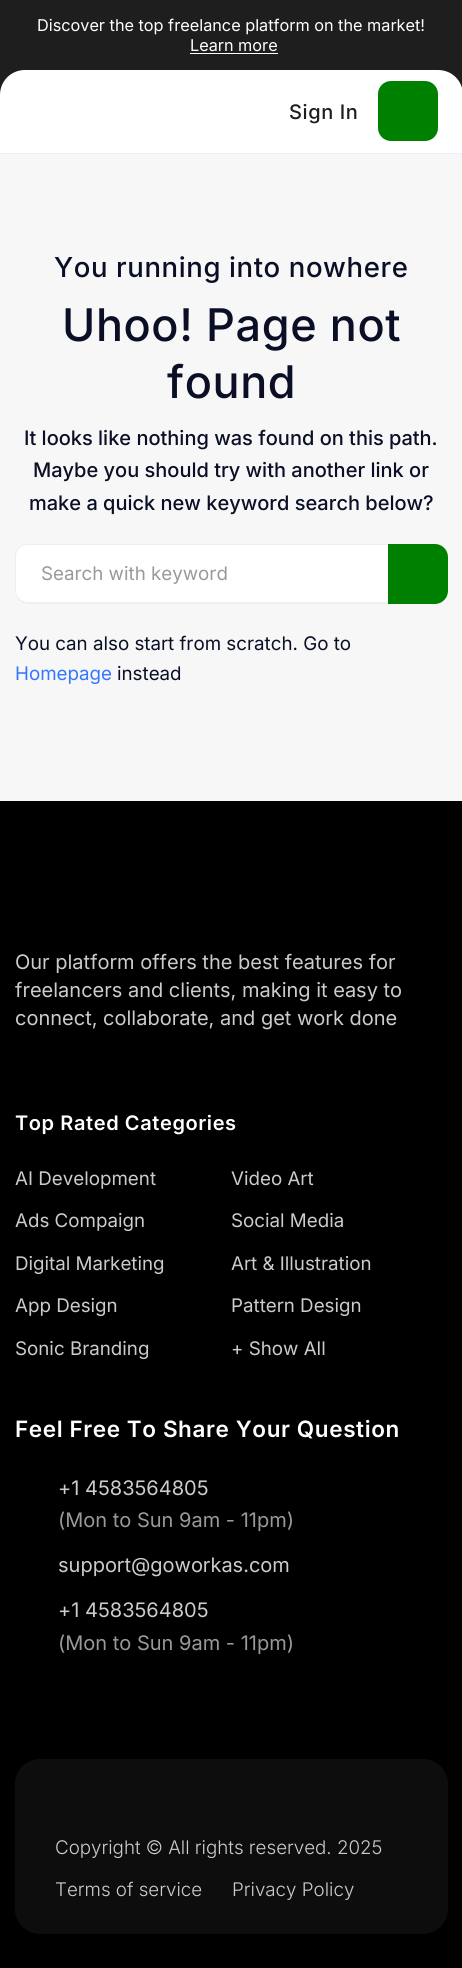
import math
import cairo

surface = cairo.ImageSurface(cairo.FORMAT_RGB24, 462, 1968)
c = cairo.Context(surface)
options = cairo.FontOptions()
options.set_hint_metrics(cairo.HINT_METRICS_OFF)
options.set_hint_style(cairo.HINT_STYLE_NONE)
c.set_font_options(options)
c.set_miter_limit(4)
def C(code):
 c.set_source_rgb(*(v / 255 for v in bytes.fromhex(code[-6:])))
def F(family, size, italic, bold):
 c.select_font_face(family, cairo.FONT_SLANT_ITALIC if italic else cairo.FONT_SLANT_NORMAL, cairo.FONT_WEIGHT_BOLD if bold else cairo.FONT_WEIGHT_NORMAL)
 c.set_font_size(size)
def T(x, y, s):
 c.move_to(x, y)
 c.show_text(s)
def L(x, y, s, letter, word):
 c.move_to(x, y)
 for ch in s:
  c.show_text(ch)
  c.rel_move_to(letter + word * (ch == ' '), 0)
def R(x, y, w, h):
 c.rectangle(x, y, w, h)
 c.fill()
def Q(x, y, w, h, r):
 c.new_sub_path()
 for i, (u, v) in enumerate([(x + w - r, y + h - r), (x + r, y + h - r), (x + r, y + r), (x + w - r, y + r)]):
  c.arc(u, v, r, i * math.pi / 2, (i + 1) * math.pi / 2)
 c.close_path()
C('f7f7f7')
c.paint()
C('1e1e1e')
R(0,0,462,95)
C('edeef0')
R(0,153,462,1)
F('Inter',16.25,0,0)
C('ffffff')
T(37,31,'Discover the top freelance platform on the market!')
T(190,51,'Learn more')
R(190,53,88,1)
c.new_path()
c.move_to(25,70)
c.line_to(438,70)
c.curve_to(452,70,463,81,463,95)
c.line_to(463,153)
c.line_to(0,153)
c.line_to(0,95)
c.curve_to(0,81,11,70,25,70)
c.close_path()
c.fill()
F('Inter Medium',20,0,0)
C('1e1e1e')
L(289,119,'Sign In',.6,0)
C('008000')
Q(378,81,60,60,13)
c.fill()
F('Inter Medium',27.5,0,0)
C('0a0f26')
L(54,277,'You running into nowhere',.6,0)
F('Inter Medium',45,0,0)
L(62,341,'Uhoo! Page not',.6,0)
L(167,398,'found',.6,0)
F('Inter Medium',20,0,0)
T(24,445,'It looks like nothing was found on this path.')
T(33,477,'Maybe you should try with another link or')
T(29,510,'make a quick new keyword search below?')
C('ffffff')
Q(15,544,433,60,13)
c.fill()
C('eeeeee')
c.set_fill_rule(cairo.FILL_RULE_EVEN_ODD)
c.new_path()
c.move_to(28,544)
c.line_to(435,544)
c.curve_to(442,544,448,549,448,556)
c.line_to(448,591)
c.curve_to(448,598,442,604,435,604)
c.line_to(28,604)
c.curve_to(21,604,15,598,15,591)
c.line_to(15,556)
c.curve_to(15,549,21,544,28,544)
c.close_path()
c.move_to(28,545)
c.line_to(435,545)
c.curve_to(442,545,448,550,448,556)
c.line_to(448,591)
c.curve_to(448,597,442,602,435,602)
c.line_to(28,602)
c.curve_to(21,602,16,597,16,591)
c.line_to(16,556)
c.curve_to(16,550,21,545,28,545)
c.close_path()
c.fill()
F('Inter',18.75,0,0)
C('999999')
T(41,580,'Search with keyword')
C('008000')
c.new_path()
c.move_to(388,544)
c.line_to(435,544)
c.curve_to(442,544,448,550,448,557)
c.line_to(448,591)
c.curve_to(448,598,442,604,435,604)
c.line_to(388,604)
c.close_path()
c.fill()
C('0a0f26')
T(15,650,'You can also start from scratch. Go to')
C('3377ff')
T(15,680,'Homepage')
C('0a0f26')
T(117,680,'instead')
C('000000')
R(0,801,462,1167)
F('Inter',20,0,0)
C('cccccc')
T(15,969,'Our platform offers the best features for')
T(15,997,'freelancers and clients, making it easy to')
T(15,1025,'connect, collaborate, and get work done')
F('Inter SemiBold',20,0,0)
C('ffffff')
L(15,1130,'Top Rated Categories',.6,0)
F('Inter',18.75,0,0)
C('cccccc')
T(15,1185,'AI Development')
T(231,1185,'Video Art')
T(15,1227,'Ads Compaign')
T(231,1227,'Social Media')
T(15,1270,'Digital Marketing')
T(231,1270,'Art & Illustration')
T(15,1312,'App Design')
T(231,1312,'Pattern Design')
T(15,1355,'Sonic Branding')
T(231,1355,'+ Show All')
F('Inter SemiBold',22.5,0,0)
C('ffffff')
L(15,1437,'Feel Free To Share Your Question',.6,0)
F('Inter',20,0,0)
C('cccccc')
T(58,1495,'+1 4583564805')
C('999999')
T(58,1527,'(Mon to Sun 9am - 11pm)')
C('cccccc')
T(58,1572,'support@goworkas.com')
T(58,1617,'+1 4583564805')
C('999999')
T(58,1650,'(Mon to Sun 9am - 11pm)')
C('0d0d0d')
Q(15,1759,433,175,25)
c.fill()
F('Inter Light',18.75,0,0)
C('cccccc')
T(55,1854,'Copyright © All rights reserved. 2025')
T(55,1896,'Terms of service')
T(232,1896,'Privacy Policy')
surface.write_to_png('o.png')
